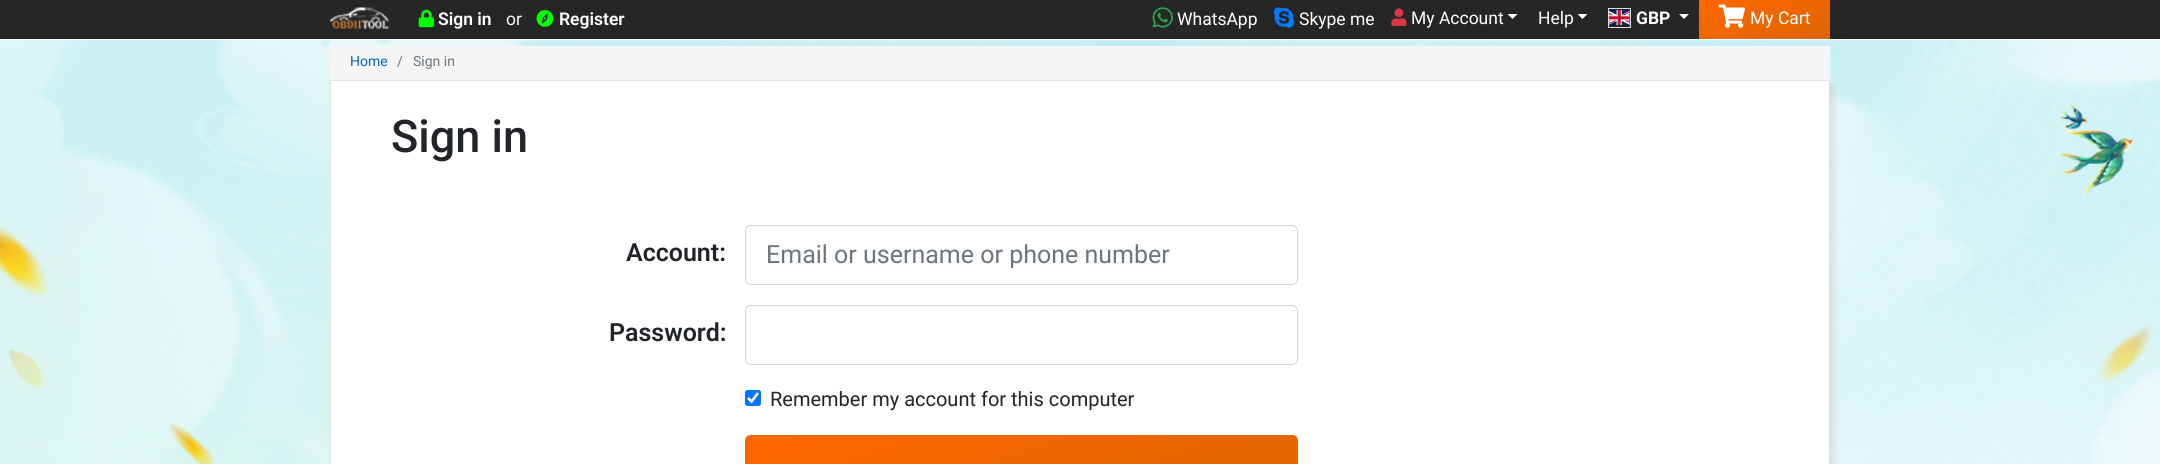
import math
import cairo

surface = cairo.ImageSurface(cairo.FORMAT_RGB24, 2160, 464)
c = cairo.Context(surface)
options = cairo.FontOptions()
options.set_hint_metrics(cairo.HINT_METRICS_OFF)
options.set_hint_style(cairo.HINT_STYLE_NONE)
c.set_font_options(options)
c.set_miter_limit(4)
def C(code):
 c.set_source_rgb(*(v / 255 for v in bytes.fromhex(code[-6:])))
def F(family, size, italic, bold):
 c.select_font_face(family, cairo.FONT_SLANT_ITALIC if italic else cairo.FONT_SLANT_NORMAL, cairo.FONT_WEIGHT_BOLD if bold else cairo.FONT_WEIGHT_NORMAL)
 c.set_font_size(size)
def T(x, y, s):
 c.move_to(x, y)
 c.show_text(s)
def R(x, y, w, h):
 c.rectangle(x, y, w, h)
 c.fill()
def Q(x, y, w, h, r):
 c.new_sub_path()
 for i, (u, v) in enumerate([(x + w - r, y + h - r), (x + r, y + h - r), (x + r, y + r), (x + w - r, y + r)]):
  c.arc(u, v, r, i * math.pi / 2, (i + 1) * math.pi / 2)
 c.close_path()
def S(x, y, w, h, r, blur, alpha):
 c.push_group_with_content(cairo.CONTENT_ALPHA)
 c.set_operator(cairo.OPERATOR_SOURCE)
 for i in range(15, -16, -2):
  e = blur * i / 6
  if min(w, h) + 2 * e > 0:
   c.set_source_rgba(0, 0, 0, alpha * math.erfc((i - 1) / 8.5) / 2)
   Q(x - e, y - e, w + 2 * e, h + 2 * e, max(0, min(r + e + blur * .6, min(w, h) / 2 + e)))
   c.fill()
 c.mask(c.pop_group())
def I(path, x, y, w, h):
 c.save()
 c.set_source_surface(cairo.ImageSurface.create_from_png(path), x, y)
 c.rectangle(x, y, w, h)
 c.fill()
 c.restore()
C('ffffff')
c.paint()
C('262626')
R(0,0,2160,39)
I('1.png',0,40,2160,424)
I('2.png',330,7,59,22)
I('3.png',418,9,17,19)
F('Roboto SemiBold',17.5,0,0)
C('ffffff')
T(438,25,'Sign in')
F('Roboto',17.5,0,0)
C('f8f9fa')
T(506,25,'or')
I('4.png',536,10,18,17)
F('Roboto SemiBold',17.5,0,0)
C('ffffff')
T(559,25,'Register')
I('5.png',1152,7,21,21)
F('Roboto',17.5,0,0)
T(1177,25,'WhatsApp')
I('6.png',1273,7,22,21)
T(1299,25,'Skype me')
I('7.png',1391,8,16,18)
T(1411,24,'My Account')
c.new_path()
c.move_to(1507.5,14)
c.line_to(1517.5,14)
c.line_to(1512.5,19)
c.close_path()
c.fill()
T(1538,24,'Help')
c.new_path()
c.move_to(1577.5,14)
c.line_to(1587.5,14)
c.line_to(1582.5,19)
c.close_path()
c.fill()
I('8.png',1609,10,21,15)
c.rectangle(1608.5,8.5,22,19)
C('dee2e6')
c.set_line_width(1)
c.stroke()
F('Roboto',17.5,0,1)
C('ffffff')
T(1636,24,'GBP')
c.new_path()
c.move_to(1679,14)
c.line_to(1689,14)
c.line_to(1684,19)
c.close_path()
c.fill()
gradient = cairo.LinearGradient(1750,-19,1778,58)
gradient.add_color_stop_rgba(0,1,0.4,0,1)
gradient.add_color_stop_rgba(1,0.867,0.4,0,1)
c.set_source(gradient)
R(1699,0,131,39)
I('9.png',1718,4,27,24)
F('Roboto',17.5,0,0)
C('ffffff')
T(1750,24,'My Cart')
C('f5f5f5')
R(330,46,1500,34)
F('Roboto',14,0,0)
C('0066c0')
T(350,66,'Home')
C('6c757d')
T(397,66,'/')
T(413,66,'Sign in')
C('d2d2d2')
S(335,85,1500,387,0,2.5,.5)
C('ffffff')
c.rectangle(330.5,80.5,1499,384)
c.fill_preserve()
C('dee2e6')
c.stroke()
F('Roboto Medium',45,0,0)
C('212529')
T(391,152,'Sign in')
F('Roboto SemiBold',25,0,0)
T(626,261,'Account:')
Q(745.5,225.5,552,59,5.5)
C('ced4da')
c.stroke()
F('Roboto',25,0,0)
C('6c757d')
T(766,263,'Email or username or phone number')
F('Roboto SemiBold',25,0,0)
C('212529')
T(609,341,'Password:')
Q(745.5,305.5,552,59,5.5)
C('ced4da')
c.stroke()
C('0075ff')
Q(745,390,16,16,2.5)
c.fill()
c.new_path()
c.move_to(748,398)
c.line_to(751.5,401.5)
c.line_to(758,393)
C('ffffff')
c.set_line_width(2.6)
c.stroke()
F('Roboto',20,0,0)
C('212529')
T(770,406,'Remember my account for this computer')
c.save()
Q(745,435,553,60,6)
c.clip()
gradient = cairo.LinearGradient(980,351,1063,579)
gradient.add_color_stop_rgba(0,1,0.4,0,1)
gradient.add_color_stop_rgba(1,0.867,0.4,0,1)
c.set_source(gradient)
R(746,436,550,28)
gradient = cairo.LinearGradient(1530,351,1613,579)
gradient.add_color_stop_rgba(0,1,0.4,0,1)
gradient.add_color_stop_rgba(1,0.867,0.4,0,1)
c.set_source(gradient)
R(1296,436,2,28)
c.restore()
Q(745.5,435.5,552,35,5.5)
C('dd6600')
c.set_line_width(1)
c.stroke()
surface.write_to_png('o.png')
